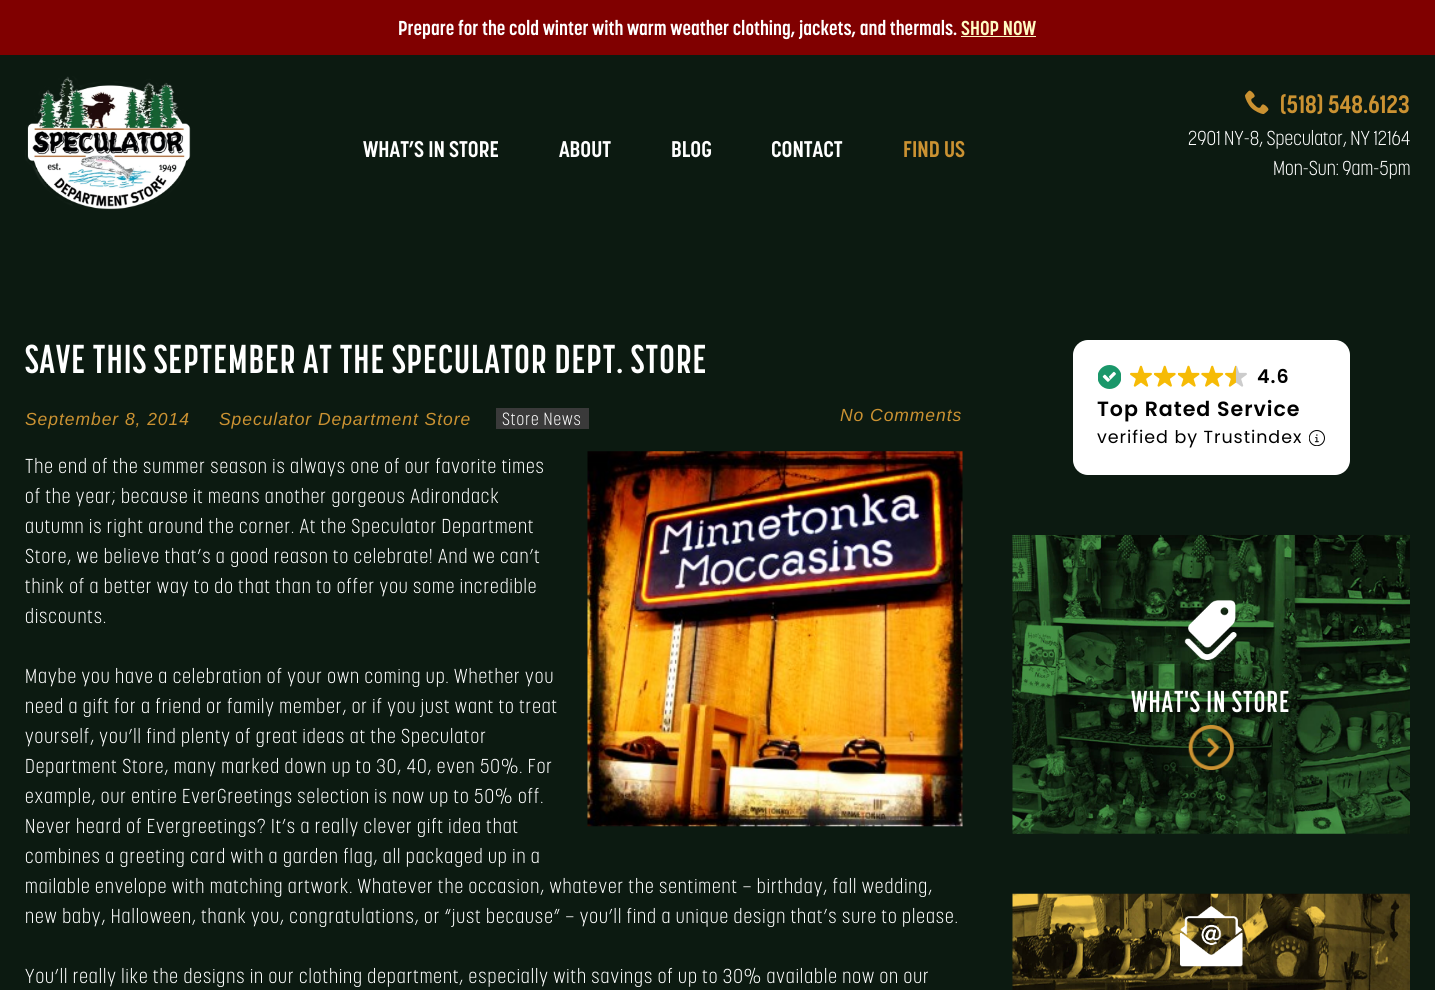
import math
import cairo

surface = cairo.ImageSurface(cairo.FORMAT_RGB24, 1435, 990)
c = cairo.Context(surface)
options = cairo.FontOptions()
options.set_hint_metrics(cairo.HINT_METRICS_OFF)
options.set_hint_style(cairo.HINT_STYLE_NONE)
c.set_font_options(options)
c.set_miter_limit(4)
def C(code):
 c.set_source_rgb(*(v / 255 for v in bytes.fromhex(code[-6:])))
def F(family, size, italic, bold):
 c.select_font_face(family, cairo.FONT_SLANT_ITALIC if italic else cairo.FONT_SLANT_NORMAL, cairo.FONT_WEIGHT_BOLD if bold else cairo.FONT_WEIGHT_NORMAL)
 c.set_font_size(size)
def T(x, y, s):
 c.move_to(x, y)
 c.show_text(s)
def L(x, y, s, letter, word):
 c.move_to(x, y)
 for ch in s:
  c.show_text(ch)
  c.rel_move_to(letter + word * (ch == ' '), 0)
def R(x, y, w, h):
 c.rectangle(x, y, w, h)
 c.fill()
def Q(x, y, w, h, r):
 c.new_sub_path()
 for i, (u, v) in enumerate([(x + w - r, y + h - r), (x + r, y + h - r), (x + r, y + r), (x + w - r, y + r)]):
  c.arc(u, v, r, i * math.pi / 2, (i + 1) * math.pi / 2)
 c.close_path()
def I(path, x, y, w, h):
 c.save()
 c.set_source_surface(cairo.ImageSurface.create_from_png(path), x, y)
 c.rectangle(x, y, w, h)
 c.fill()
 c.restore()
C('0c1a11')
c.paint()
C('800000')
R(0,0,1435,55)
F('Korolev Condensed',20,0,1)
C('ffffff')
T(398,35,'Prepare for the cold winter with warm weather clothing, jackets, and thermals.')
C('fffac2')
T(961,35,'SHOP NOW')
R(961,36,75,1)
I('1.png',25,76,166,134)
F('Korolev Condensed',22.5,0,1)
C('ffffff')
T(363,157,'WHAT’S IN STORE')
T(559,157,'ABOUT')
T(671,157,'BLOG')
T(771,157,'CONTACT')
C('cb9232')
T(903,157,'FIND US')
I('2.png',1245,90,24,24)
F('Korolev Condensed',25,0,1)
T(1280,113,'(518) 548.6123')
F('Korolev Condensed Light',20,0,0)
C('ffffff')
T(1188,145,'2901 NY-8, Speculator, NY 12164')
T(1273,175,'Mon-Sun: 9am-5pm')
F('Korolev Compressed',40,0,1)
L(25,373,'SAVE THIS SEPTEMBER AT THE SPECULATOR DEPT. STORE',.94,0)
F('Liberation Sans',17.5,1,0)
C('cb9232')
L(25,425,'September 8, 2014',.94,0)
L(219,425,'Speculator Department Store',.94,0)
C('3a3a3a')
R(496,408,93,21)
F('Korolev Condensed Light',17.5,0,0)
C('ffffff')
L(502,425,'Store News',.94,0)
F('Liberation Sans',17.5,1,0)
C('cb9232')
L(840,421,'No Comments',.94,0)
F('Korolev Condensed Light',20,0,0)
C('ffffff')
L(25,473,'The end of the summer season is always one of our favorite times',.94,0)
I('3.png',587,451,376,376)
L(25,503,'of the year; because it means another gorgeous Adirondack',.94,0)
L(25,533,'autumn is right around the corner. At the Speculator Department',.94,0)
L(25,563,'Store, we believe that’s a good reason to celebrate! And we can’t',.94,0)
L(25,593,'think of a better way to do that than to offer you some incredible',.94,0)
L(25,623,'discounts.',.94,0)
L(25,683,'Maybe you have a celebration of your own coming up. Whether you',.94,0)
L(25,713,'need a gift for a friend or family member, or if you just want to treat',.94,0)
L(25,743,'yourself, you’ll find plenty of great ideas at the Speculator',.94,0)
L(25,773,'Department Store, many marked down up to 30, 40, even 50%. For',.94,0)
L(25,803,'example, our entire EverGreetings selection is now up to 50% off.',.94,0)
L(25,833,'Never heard of Evergreetings? It’s a really clever gift idea that',.94,0)
L(25,863,'combines a greeting card with a garden flag, all packaged up in a',.94,0)
L(25,893,'mailable envelope with matching artwork. Whatever the occasion, whatever the sentiment — birthday, fall wedding,',.94,0)
L(25,923,'new baby, Halloween, thank you, congratulations, or “just because” — you’ll find a unique design that’s sure to please.',.94,0)
L(25,983,'You’ll really like the designs in our clothing department, especially with savings of up to 30% available now on our',.94,0)
Q(1073,340,277,135,15)
c.fill()
I('4.png',1098,365,23,24)
I('5.png',1130,365,22,22)
I('6.png',1154,365,22,22)
I('7.png',1178,365,22,22)
I('8.png',1201,365,23,22)
I('9.png',1225,365,22,22)
F('Poppins SemiBold',19,0,0)
C('000000')
L(1257,383,'4.6',.94,0)
F('Poppins SemiBold',20.6,0,0)
L(1097,416,'Top Rated Service',.94,0)
F('Poppins',17.5,0,0)
L(1097,443,'verified by Trustindex',.94,0)
I('10.png',1309,430,16,16)
I('11.png',1012,535,398,299)
I('12.png',1184,600,53,60)
F('Korolev Compressed',30,0,1)
C('ffffff')
L(1131,712,'WHAT\'S IN STORE',.94,0)
I('13.png',1188,725,46,45)
I('14.png',1012,893,398,97)
I('15.png',1180,906,63,61)
surface.write_to_png('o.png')
